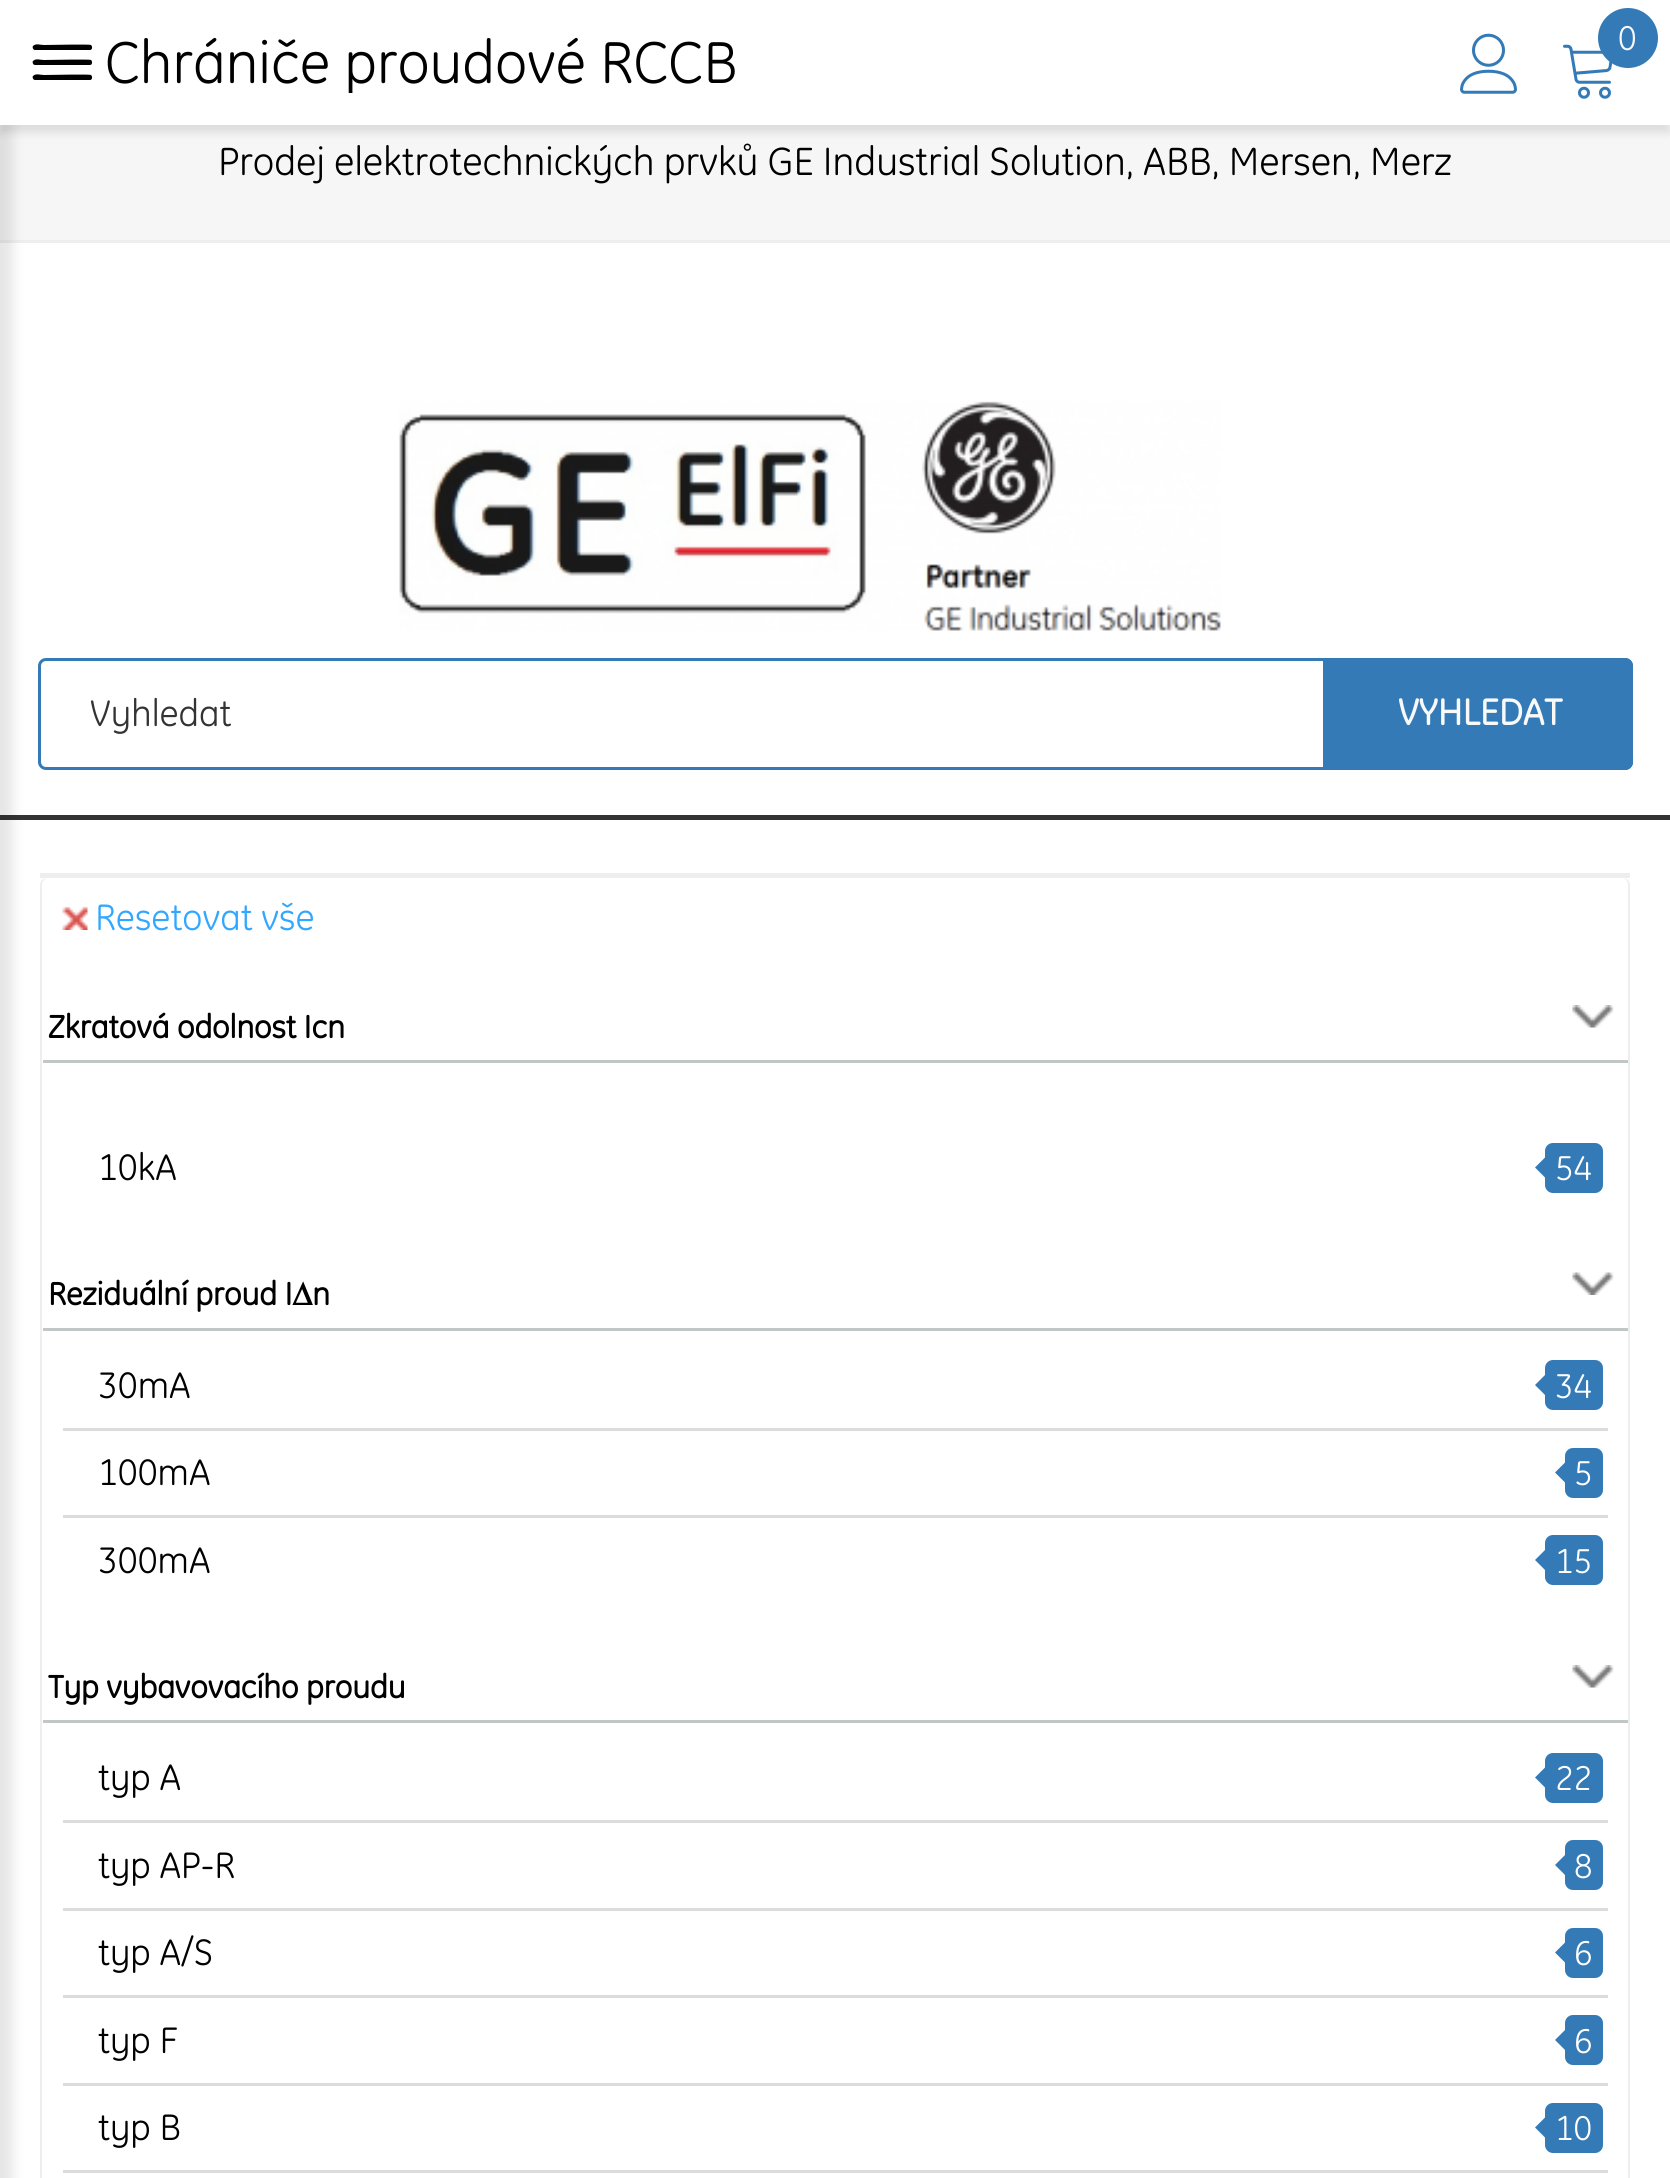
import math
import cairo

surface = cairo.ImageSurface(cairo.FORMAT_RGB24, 1670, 2178)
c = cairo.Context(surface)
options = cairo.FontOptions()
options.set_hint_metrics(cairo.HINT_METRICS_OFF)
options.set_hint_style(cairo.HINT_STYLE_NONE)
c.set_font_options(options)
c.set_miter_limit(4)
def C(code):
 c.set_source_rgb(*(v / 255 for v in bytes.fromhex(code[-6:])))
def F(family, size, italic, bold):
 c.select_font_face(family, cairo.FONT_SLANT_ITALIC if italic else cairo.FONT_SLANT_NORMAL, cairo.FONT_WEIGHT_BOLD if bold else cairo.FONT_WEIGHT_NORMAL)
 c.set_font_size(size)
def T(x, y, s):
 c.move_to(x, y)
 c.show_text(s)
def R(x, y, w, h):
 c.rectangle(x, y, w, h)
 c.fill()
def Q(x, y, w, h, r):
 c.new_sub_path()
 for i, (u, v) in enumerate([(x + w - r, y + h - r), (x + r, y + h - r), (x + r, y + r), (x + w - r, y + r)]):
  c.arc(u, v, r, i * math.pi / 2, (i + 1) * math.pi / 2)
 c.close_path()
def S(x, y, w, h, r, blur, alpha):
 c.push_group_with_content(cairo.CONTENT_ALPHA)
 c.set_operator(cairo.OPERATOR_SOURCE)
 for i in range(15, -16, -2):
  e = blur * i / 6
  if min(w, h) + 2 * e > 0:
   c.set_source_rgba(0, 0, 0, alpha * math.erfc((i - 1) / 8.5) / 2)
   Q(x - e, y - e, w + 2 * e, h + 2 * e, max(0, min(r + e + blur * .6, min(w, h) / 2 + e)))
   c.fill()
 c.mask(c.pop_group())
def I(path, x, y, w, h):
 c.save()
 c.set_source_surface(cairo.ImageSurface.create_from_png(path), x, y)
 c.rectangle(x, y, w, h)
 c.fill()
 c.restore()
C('ffffff')
c.paint()
C('f6f6f6')
R(0,125,1670,115)
C('eeeeee')
R(0,240,1670,3)
C('333333')
R(0,815,1670,5)
C('000000')
S(-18,0,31,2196,0,6,.1)
S(0,8,1670,125,0,4,.1)
C('ffffff')
R(0,0,1670,125)
I('1.png',1563,44,50,55)
C('337ab7')
c.arc(1628,38,30,0,2 * math.pi)
c.fill()
F('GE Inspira',35,0,0)
C('f9f9f9')
T(1618,50,'0')
I('2.png',399,401,822,230)
Q(39.5,659.5,1592,109,6.5)
C('337ab7')
c.set_line_width(3)
c.stroke()
F('GE Inspira',37.5,0,0)
C('333333')
T(90,726,'Vyhledat')
C('337ab7')
c.new_path()
c.move_to(1323,658)
c.line_to(1625,658)
c.curve_to(1629.5,658,1633,661.5,1633,666)
c.line_to(1633,762)
c.curve_to(1633,766.5,1629.5,770,1625,770)
c.line_to(1323,770)
c.close_path()
c.fill()
F('GE Inspira',37.5,0,1)
C('f9f9f9')
T(1398,725,'VYHLEDAT')
I('3.png',1460,33,57,61)
F('GE Inspira',40,0,0)
C('000000')
T(218,175,'Prodej elektrotechnických prvků GE Industrial Solution, ABB, Mersen, Merz')
C('eeeeee')
R(40,873,1590,5)
c.set_fill_rule(cairo.FILL_RULE_EVEN_ODD)
c.new_path()
c.move_to(48,878)
c.line_to(1622,878)
c.curve_to(1627,878,1630,881,1630,885)
c.line_to(1630,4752)
c.curve_to(1630,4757,1627,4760,1622,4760)
c.line_to(48,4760)
c.curve_to(43,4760,40,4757,40,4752)
c.line_to(40,885)
c.curve_to(40,881,43,878,48,878)
c.close_path()
c.move_to(48,878)
c.line_to(1622,878)
c.curve_to(1625,878,1628,881,1628,885)
c.line_to(1628,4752)
c.curve_to(1628,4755,1625,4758,1622,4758)
c.line_to(48,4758)
c.curve_to(45,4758,42,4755,42,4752)
c.line_to(42,885)
c.curve_to(42,881,45,878,48,878)
c.close_path()
c.fill()
I('4.png',62,906,26,24)
F('GE Inspira',37.5,0,0)
C('31a7ff')
T(95,930,'Resetovat vše')
C('c1c6c6')
R(43,1060,1585,3)
F('GE Inspira',32.5,0,1)
C('000000')
T(48,1038,'Zkratová odolnost Icn')
I('5.png',1572,1005,42,23)
F('GE Inspira',37.5,0,0)
T(98,1180,'10kA')
C('337ab7')
Q(1545,1143,58,50,8)
c.fill()
c.set_fill_rule(cairo.FILL_RULE_WINDING)
c.new_path()
c.move_to(1545,1157.5)
c.line_to(1545,1177.5)
c.line_to(1535,1167.5)
c.close_path()
c.fill()
F('GE Inspira',35,0,0)
C('ffffff')
T(1555,1180,'54')
C('c1c6c6')
R(43,1328,1585,3)
F('GE Inspira',32.5,0,1)
C('000000')
T(48,1305,'Reziduální proud I∆n')
I('6.png',1572,1272,42,23)
F('GE Inspira',37.5,0,0)
T(98,1398,'30mA')
C('337ab7')
Q(1545,1360,58,50,8)
c.fill()
c.new_path()
c.move_to(1545,1375)
c.line_to(1545,1395)
c.line_to(1535,1385)
c.close_path()
c.fill()
F('GE Inspira',35,0,0)
C('ffffff')
T(1555,1398,'34')
C('dcdcdc')
R(63,1428,1545,3)
F('GE Inspira',37.5,0,0)
C('000000')
T(98,1485,'100mA')
C('337ab7')
Q(1565,1448,38,50,8)
c.fill()
c.new_path()
c.move_to(1565,1462.5)
c.line_to(1565,1482.5)
c.line_to(1555,1472.5)
c.close_path()
c.fill()
F('GE Inspira',35,0,0)
C('ffffff')
T(1574,1485,'5')
C('dcdcdc')
R(63,1515,1545,3)
F('GE Inspira',37.5,0,0)
C('000000')
T(98,1573,'300mA')
C('337ab7')
Q(1545,1535,58,50,8)
c.fill()
c.new_path()
c.move_to(1545,1550)
c.line_to(1545,1570)
c.line_to(1535,1560)
c.close_path()
c.fill()
F('GE Inspira',35,0,0)
C('ffffff')
T(1555,1573,'15')
C('c1c6c6')
R(43,1720,1585,3)
F('GE Inspira',32.5,0,1)
C('000000')
T(48,1698,'Typ vybavovacího proudu')
I('5.png',1572,1665,42,23)
F('GE Inspira',37.5,0,0)
T(98,1790,'typ A')
C('337ab7')
Q(1545,1753,58,50,8)
c.fill()
c.new_path()
c.move_to(1545,1767.5)
c.line_to(1545,1787.5)
c.line_to(1535,1777.5)
c.close_path()
c.fill()
F('GE Inspira',35,0,0)
C('ffffff')
T(1555,1790,'22')
C('dcdcdc')
R(63,1820,1545,3)
F('GE Inspira',37.5,0,0)
C('000000')
T(98,1878,'typ AP-R')
C('337ab7')
Q(1565,1840,38,50,8)
c.fill()
c.new_path()
c.move_to(1565,1855)
c.line_to(1565,1875)
c.line_to(1555,1865)
c.close_path()
c.fill()
F('GE Inspira',35,0,0)
C('ffffff')
T(1574,1878,'8')
C('dcdcdc')
R(63,1908,1545,3)
F('GE Inspira',37.5,0,0)
C('000000')
T(98,1965,'typ A/S')
C('337ab7')
Q(1565,1928,38,50,8)
c.fill()
c.new_path()
c.move_to(1565,1942.5)
c.line_to(1565,1962.5)
c.line_to(1555,1952.5)
c.close_path()
c.fill()
F('GE Inspira',35,0,0)
C('ffffff')
T(1574,1965,'6')
C('dcdcdc')
R(63,1995,1545,3)
F('GE Inspira',37.5,0,0)
C('000000')
T(98,2053,'typ F')
C('337ab7')
Q(1565,2015,38,50,8)
c.fill()
c.new_path()
c.move_to(1565,2030)
c.line_to(1565,2050)
c.line_to(1555,2040)
c.close_path()
c.fill()
F('GE Inspira',35,0,0)
C('ffffff')
T(1574,2053,'6')
C('dcdcdc')
R(63,2083,1545,3)
F('GE Inspira',37.5,0,0)
C('000000')
T(98,2140,'typ B')
C('337ab7')
Q(1545,2103,58,50,8)
c.fill()
c.new_path()
c.move_to(1545,2117.5)
c.line_to(1545,2137.5)
c.line_to(1535,2127.5)
c.close_path()
c.fill()
F('GE Inspira',35,0,0)
C('ffffff')
T(1555,2140,'10')
C('dcdcdc')
R(63,2170,1545,3)
C('000000')
c.new_path()
c.move_to(90,65)
c.line_to(35,65)
c.curve_to(33,65,32,62,33,61)
c.curve_to(36,58,40,60,44,60)
c.curve_to(50,60,90,59,91,60)
c.curve_to(93,62,92,65,90,65)
c.close_path()
c.move_to(90,80)
c.line_to(35,80)
c.curve_to(33,80,32,77,33,76)
c.curve_to(36,73,40,75,44,75)
c.curve_to(50,75,90,74,91,75)
c.curve_to(93,77,92,80,90,80)
c.close_path()
c.move_to(90,50)
c.line_to(35,50)
c.curve_to(33,50,32,47,33,46)
c.curve_to(36,43,40,45,44,45)
c.curve_to(50,45,90,44,91,45)
c.curve_to(93,47,92,50,90,50)
c.close_path()
c.fill()
c.save()
c.rectangle(105,33,1360,60)
c.clip()
F('GE Inspira',60,0,0)
T(105,83,'Chrániče proudové RCCB')
c.restore()
surface.write_to_png('o.png')
